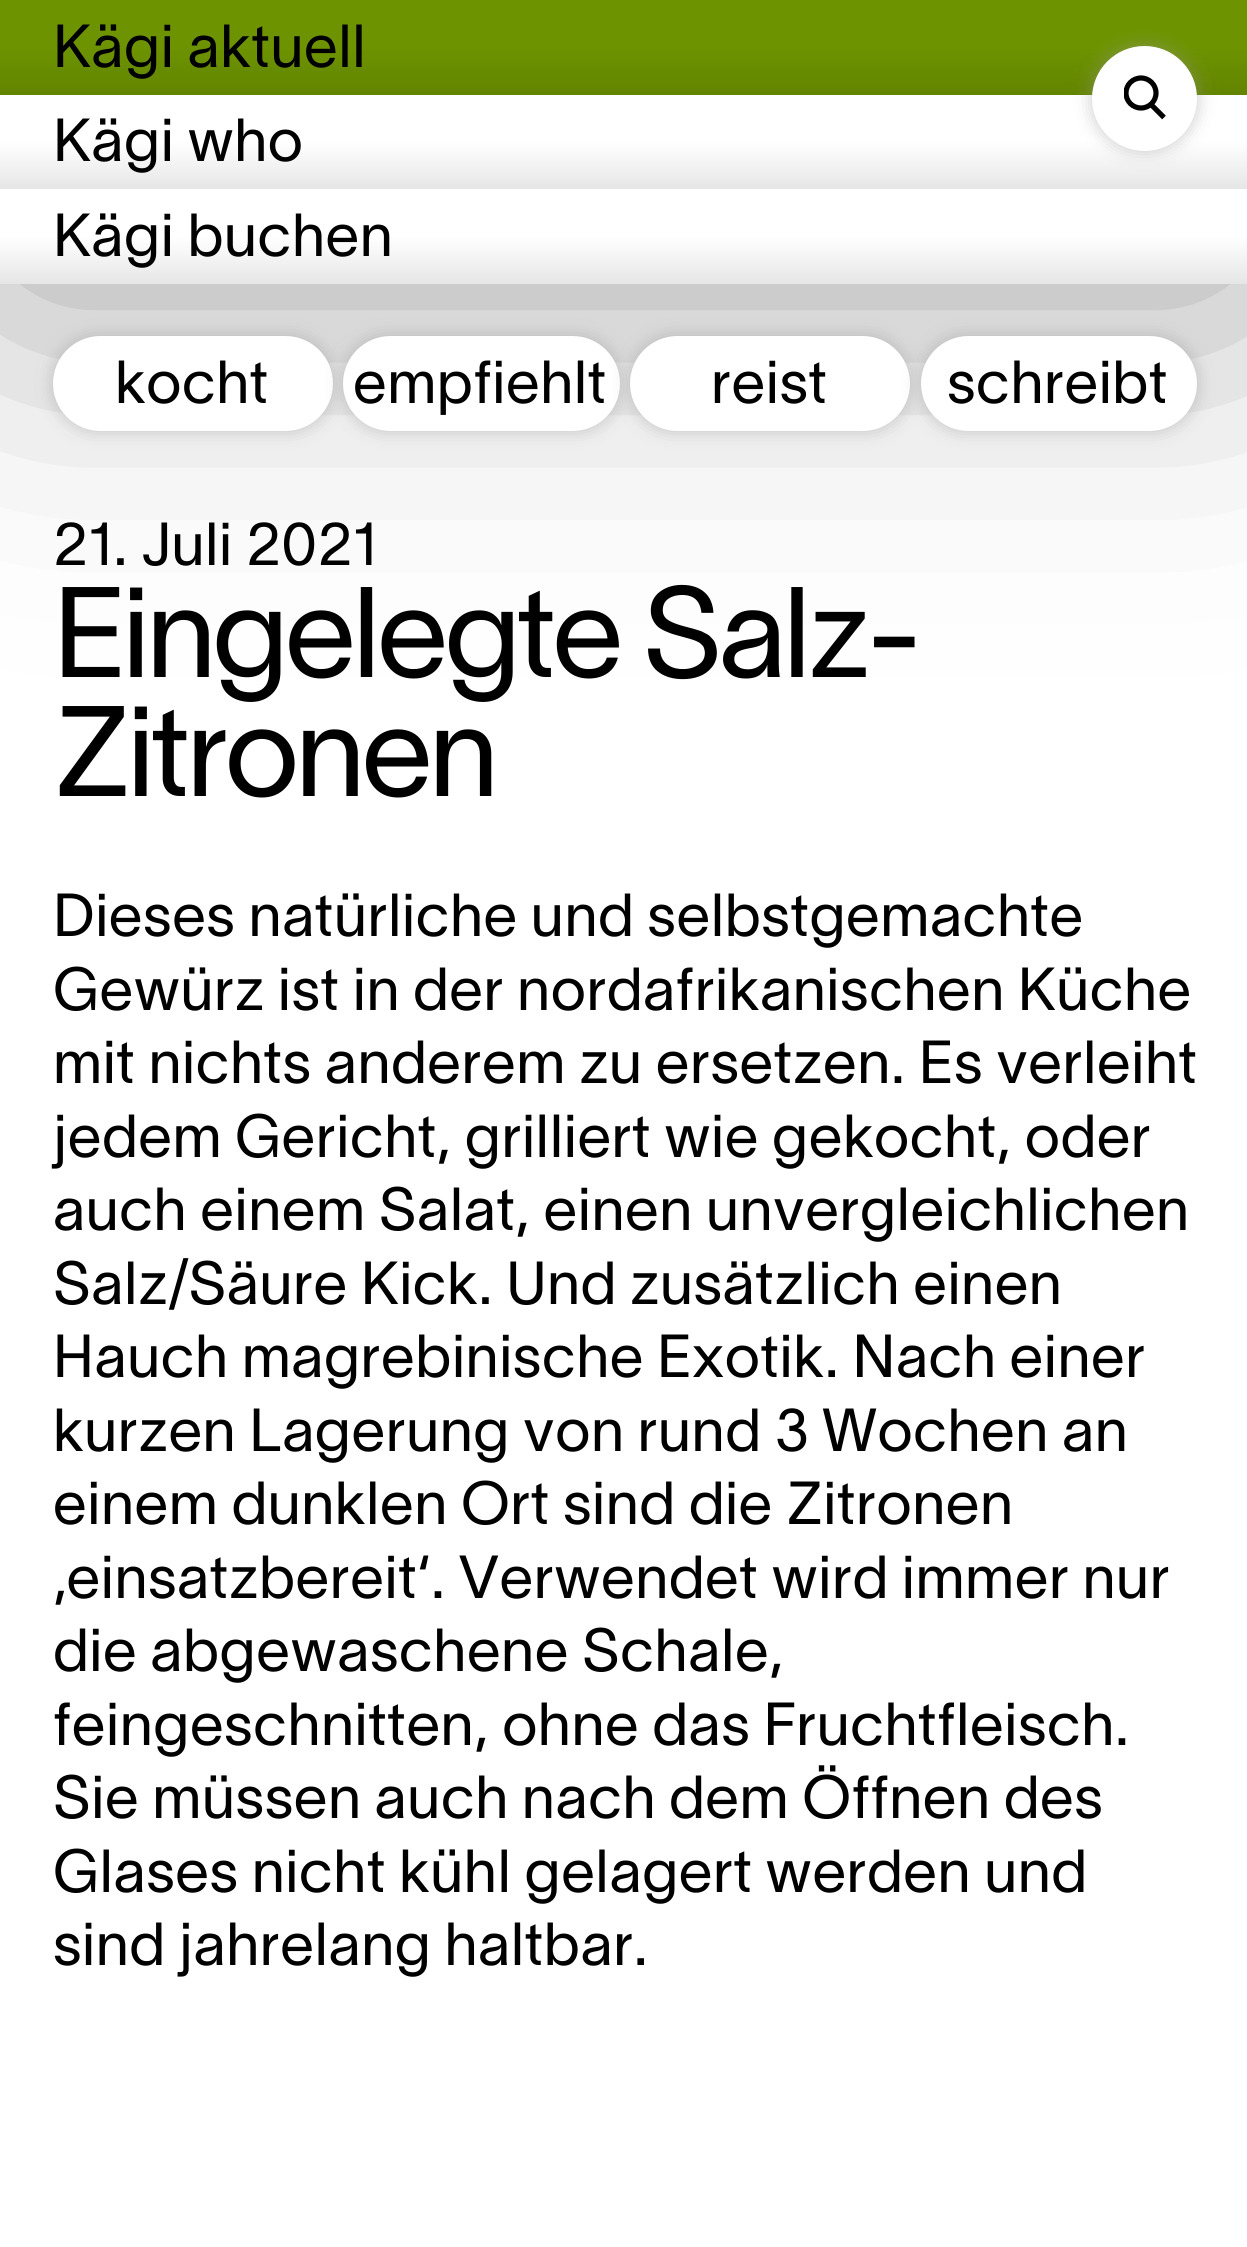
import math
import cairo

surface = cairo.ImageSurface(cairo.FORMAT_RGB24, 1247, 2247)
c = cairo.Context(surface)
options = cairo.FontOptions()
options.set_hint_metrics(cairo.HINT_METRICS_OFF)
options.set_hint_style(cairo.HINT_STYLE_NONE)
c.set_font_options(options)
c.set_miter_limit(4)
def C(code):
 c.set_source_rgb(*(v / 255 for v in bytes.fromhex(code[-6:])))
def F(family, size, italic, bold):
 c.select_font_face(family, cairo.FONT_SLANT_ITALIC if italic else cairo.FONT_SLANT_NORMAL, cairo.FONT_WEIGHT_BOLD if bold else cairo.FONT_WEIGHT_NORMAL)
 c.set_font_size(size)
def L(x, y, s, letter, word):
 c.move_to(x, y)
 for ch in s:
  c.show_text(ch)
  c.rel_move_to(letter + word * (ch == ' '), 0)
def R(x, y, w, h):
 c.rectangle(x, y, w, h)
 c.fill()
def Q(x, y, w, h, r):
 c.new_sub_path()
 for i, (u, v) in enumerate([(x + w - r, y + h - r), (x + r, y + h - r), (x + r, y + r), (x + w - r, y + r)]):
  c.arc(u, v, r, i * math.pi / 2, (i + 1) * math.pi / 2)
 c.close_path()
def S(x, y, w, h, r, blur, alpha):
 c.push_group_with_content(cairo.CONTENT_ALPHA)
 c.set_operator(cairo.OPERATOR_SOURCE)
 for i in range(15, -16, -2):
  e = blur * i / 6
  if min(w, h) + 2 * e > 0:
   c.set_source_rgba(0, 0, 0, alpha * math.erfc((i - 1) / 8.5) / 2)
   Q(x - e, y - e, w + 2 * e, h + 2 * e, max(0, min(r + e + blur * .6, min(w, h) / 2 + e)))
   c.fill()
 c.mask(c.pop_group())
C('ffffff')
c.paint()
C('999999')
S(0,0,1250,284,0,157.5,1)
gradient = cairo.LinearGradient(625,0,625,95)
gradient.add_color_stop_rgba(.5,0.427,0.576,0,1)
gradient.add_color_stop_rgba(1,0.384,0.518,0,1)
c.set_source(gradient)
R(0,0,1247,95)
gradient = cairo.LinearGradient(625,94,625,189)
gradient.add_color_stop_rgba(.5,1,1,1,1)
gradient.add_color_stop_rgba(1,0.902,0.902,0.902,1)
c.set_source(gradient)
R(0,95,1247,94)
C('999999')
S(1092,46,105,105,52.5,9,.5)
C('ffffff')
c.arc(1144.5,98.5,52.5,0,2 * math.pi)
c.fill()
c.new_path()
c.move_to(1150,103.5)
c.line_to(1164,117.5)
C('000000')
c.set_line_width(5.2)
c.stroke()
c.save()
c.rectangle(1124,74,45,49)
c.clip()
c.arc(1141,93,15,0,2 * math.pi)
c.stroke()
c.restore()
F('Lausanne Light',59.5,0,0)
L(53,67,'Kägi aktuell',.6,0)
C('999999')
S(53,336,280,95,47.5,9,.5)
C('ffffff')
Q(53,336,280,95,47.5)
c.fill()
C('000000')
L(115,403,'kocht',.6,0)
C('999999')
S(343,336,277,95,47.5,9,.5)
C('ffffff')
Q(343,336,277,95,47.5)
c.fill()
C('000000')
L(353,403,'empfiehlt',.6,0)
C('999999')
S(630,336,280,95,47.5,9,.5)
C('ffffff')
Q(630,336,280,95,47.5)
c.fill()
C('000000')
L(711,403,'reist',.6,0)
C('999999')
S(921,336,276,95,47.5,9,.5)
C('ffffff')
Q(921,336,276,95,47.5)
c.fill()
C('000000')
L(947,403,'schreibt',.6,0)
L(53,161,'Kägi who',.6,0)
gradient = cairo.LinearGradient(625,189,625,284)
gradient.add_color_stop_rgba(.5,1,1,1,1)
gradient.add_color_stop_rgba(1,0.902,0.902,0.902,1)
c.set_source(gradient)
R(0,189,1247,95)
C('000000')
L(53,256,'Kägi buchen',.6,0)
L(53,565,'21. Juli 2021',.6,0)
F('Lausanne Light',126,0,0)
L(53,677,'Eingelegte Salz-',-3.75,0)
L(53,796,'Zitronen',-3.75,0)
F('Lausanne Light',59.5,0,0)
L(53,936,'Dieses natürliche und selbstgemachte',.6,0)
L(53,1010,'Gewürz ist in der nordafrikanischen Küche',.6,0)
L(53,1083,'mit nichts anderem zu ersetzen. Es verleiht',.6,0)
L(53,1157,'jedem Gericht, grilliert wie gekocht, oder',.6,0)
L(53,1230,'auch einem Salat, einen unvergleichlichen',.6,0)
L(53,1304,'Salz/Säure Kick. Und zusätzlich einen',.6,0)
L(53,1377,'Hauch magrebinische Exotik. Nach einer',.6,0)
L(53,1451,'kurzen Lagerung von rund 3 Wochen an',.6,0)
L(53,1524,'einem dunklen Ort sind die Zitronen',.6,0)
L(53,1598,'‚einsatzbereit‘. Verwendet wird immer nur',.6,0)
L(53,1671,'die abgewaschene Schale,',.6,0)
L(53,1745,'feingeschnitten, ohne das Fruchtfleisch.',.6,0)
L(53,1818,'Sie müssen auch nach dem Öffnen des',.6,0)
L(53,1892,'Glases nicht kühl gelagert werden und',.6,0)
L(53,1965,'sind jahrelang haltbar.',.6,0)
surface.write_to_png('o.png')
